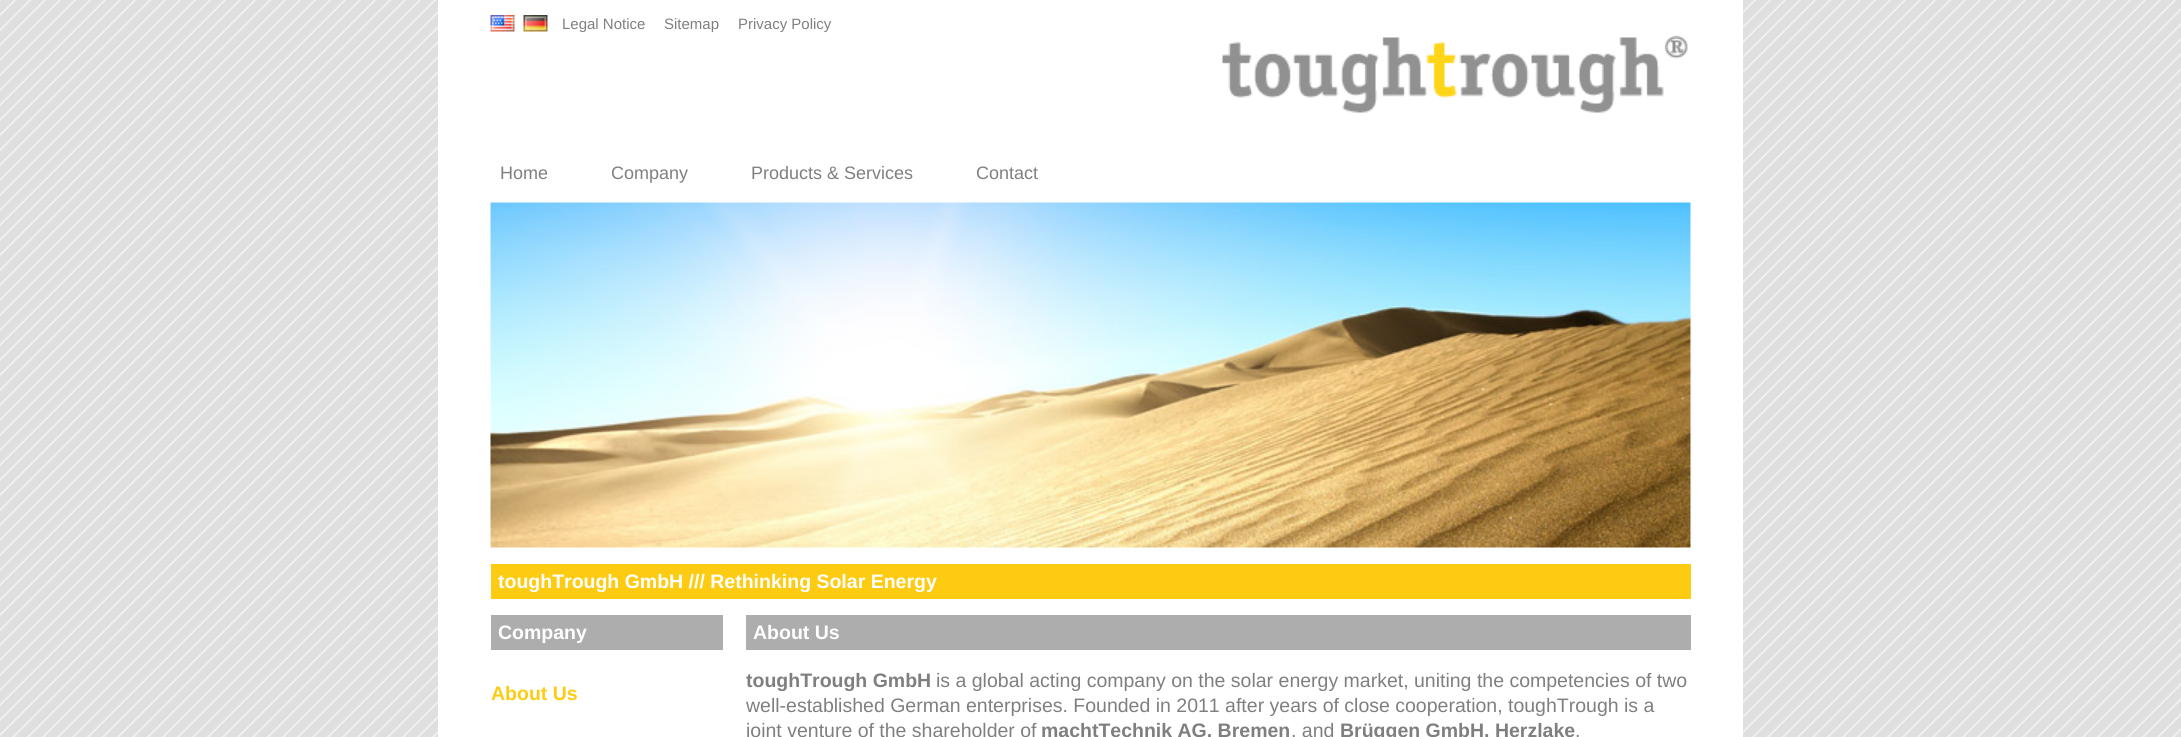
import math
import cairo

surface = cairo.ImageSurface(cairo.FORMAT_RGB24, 2181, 737)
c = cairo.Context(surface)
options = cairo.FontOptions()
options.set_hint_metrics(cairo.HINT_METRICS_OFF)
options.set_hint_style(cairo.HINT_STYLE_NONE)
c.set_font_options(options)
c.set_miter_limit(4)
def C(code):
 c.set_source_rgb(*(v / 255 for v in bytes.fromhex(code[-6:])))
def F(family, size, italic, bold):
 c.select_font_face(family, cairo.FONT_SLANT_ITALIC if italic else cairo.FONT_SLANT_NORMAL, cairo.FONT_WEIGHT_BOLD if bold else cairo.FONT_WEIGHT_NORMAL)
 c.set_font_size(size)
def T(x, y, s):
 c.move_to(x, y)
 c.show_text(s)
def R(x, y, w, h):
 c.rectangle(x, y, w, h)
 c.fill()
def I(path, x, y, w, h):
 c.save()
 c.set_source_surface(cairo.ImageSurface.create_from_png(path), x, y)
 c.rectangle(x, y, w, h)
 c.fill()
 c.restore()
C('ffffff')
c.paint()
I('1.png',0,0,2181,737)
C('ffffff')
R(438,0,1305,737)
I('2.png',490,15,25,17)
I('3.png',523,15,25,17)
F('Liberation Sans',15,0,0)
C('7f7f7f')
T(562,29,'Legal Notice')
T(664,29,'Sitemap')
T(738,29,'Privacy Policy')
I('4.png',1222,35,466,78)
F('Liberation Sans',18,0,0)
T(500,179,'Home')
T(611,179,'Company')
T(751,179,'Products & Services')
T(976,179,'Contact')
I('5.png',490,202,1201,346)
C('fdcc12')
R(491,564,1200,35)
F('Liberation Sans',19.5,0,1)
C('ffffff')
T(498,588,'toughTrough GmbH /// Rethinking Solar Energy')
C('adadad')
R(491,615,232,35)
C('ffffff')
T(498,639,'Company')
C('fdcc12')
T(491,700,'About Us')
C('adadad')
R(746,615,945,35)
C('ffffff')
T(753,639,'About Us')
C('7f7f7f')
T(746,687,'toughTrough GmbH')
F('Liberation Sans',19.5,0,0)
T(936,687,'is a global acting company on the solar energy market, uniting the competencies of two')
T(746,712,'well-established German enterprises. Founded in 2011 after years of close cooperation, toughTrough is a')
T(746,737,'joint venture of the shareholder of')
F('Liberation Sans',19.5,0,1)
T(1041,737,'machtTechnik AG, Bremen')
F('Liberation Sans',19.5,0,0)
T(1291,737,', and')
F('Liberation Sans',19.5,0,1)
T(1340,737,'Brüggen GmbH, Herzlake')
F('Liberation Sans',19.5,0,0)
T(1575,737,'.')
surface.write_to_png('o.png')
